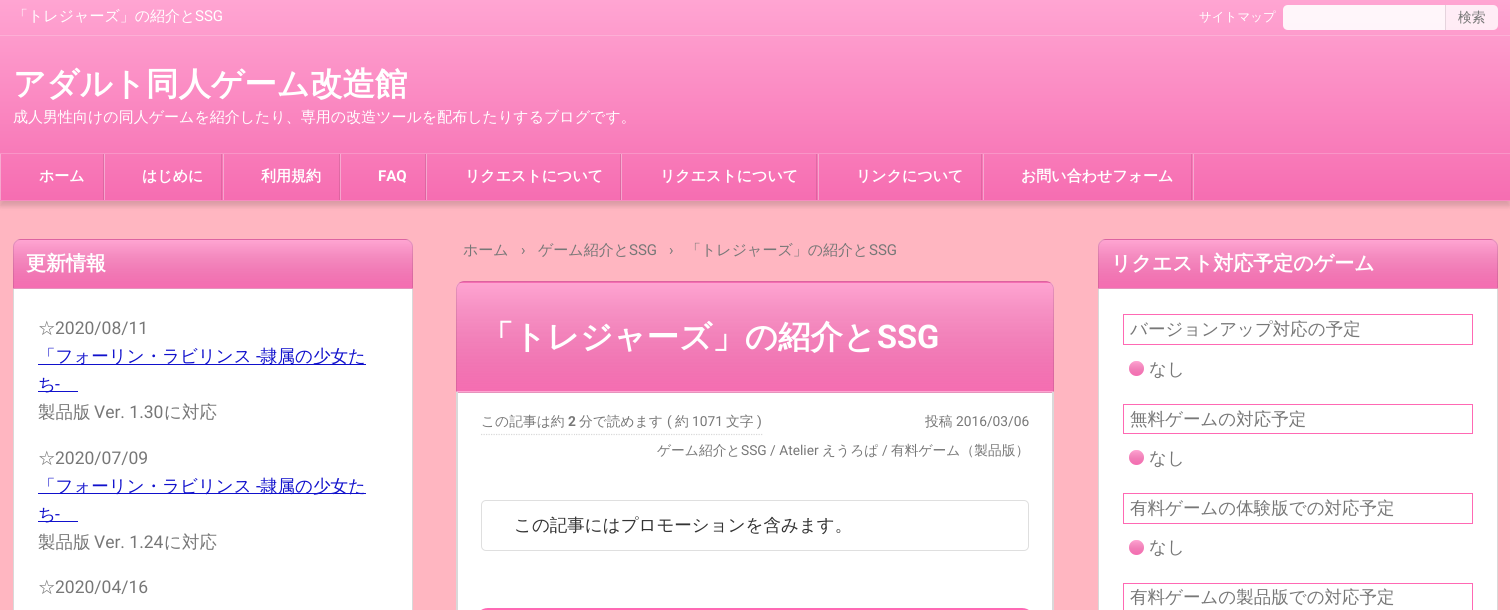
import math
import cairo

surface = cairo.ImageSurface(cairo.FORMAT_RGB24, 1510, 610)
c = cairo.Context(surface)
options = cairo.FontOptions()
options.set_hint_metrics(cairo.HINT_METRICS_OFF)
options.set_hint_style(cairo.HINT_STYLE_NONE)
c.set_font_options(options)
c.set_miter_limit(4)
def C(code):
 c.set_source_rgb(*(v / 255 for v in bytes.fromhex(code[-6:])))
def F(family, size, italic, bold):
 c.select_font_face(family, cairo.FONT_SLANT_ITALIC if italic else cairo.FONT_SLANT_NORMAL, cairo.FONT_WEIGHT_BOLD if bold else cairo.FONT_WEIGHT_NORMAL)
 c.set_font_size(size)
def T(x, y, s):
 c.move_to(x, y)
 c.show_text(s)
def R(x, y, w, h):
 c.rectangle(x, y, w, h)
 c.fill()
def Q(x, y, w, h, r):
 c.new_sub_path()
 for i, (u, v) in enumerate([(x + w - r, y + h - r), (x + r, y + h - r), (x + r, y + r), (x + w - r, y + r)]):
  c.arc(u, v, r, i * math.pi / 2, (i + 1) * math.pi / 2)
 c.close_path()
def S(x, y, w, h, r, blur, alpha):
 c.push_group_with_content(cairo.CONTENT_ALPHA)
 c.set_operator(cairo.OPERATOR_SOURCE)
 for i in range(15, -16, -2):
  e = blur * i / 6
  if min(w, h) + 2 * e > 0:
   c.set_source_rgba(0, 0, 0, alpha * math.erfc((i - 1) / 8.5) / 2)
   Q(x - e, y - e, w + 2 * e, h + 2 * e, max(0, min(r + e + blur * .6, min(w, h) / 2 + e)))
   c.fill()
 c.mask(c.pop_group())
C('ffb6c1')
c.paint()
C('000000')
S(0,5,1510,201,0,2.5,.15)
gradient = cairo.LinearGradient(755,0,755,201)
gradient.add_color_stop_rgba(0,1,0.647,0.824,1)
gradient.add_color_stop_rgba(1,0.965,0.427,0.694,1)
c.set_source(gradient)
R(0,0,1510,200)
gradient = cairo.LinearGradient(755,0,755,201)
gradient.add_color_stop_rgba(0,0.984,0.773,0.878,1)
gradient.add_color_stop_rgba(1,0.961,0.639,0.8,1)
c.set_source(gradient)
R(983,154,1,46)
R(1193,154,1,46)
gradient = cairo.LinearGradient(755,0,755,201)
gradient.add_color_stop_rgba(0,0.902,0.584,0.741,1)
gradient.add_color_stop_rgba(1,0.867,0.384,0.624,1)
c.set_source(gradient)
R(1191,154,1,46)
gradient = cairo.LinearGradient(755,0,755,201)
gradient.add_color_stop_rgba(0,0.984,0.773,0.878,1)
gradient.add_color_stop_rgba(1,0.961,0.639,0.8,1)
c.set_source(gradient)
R(818,154,1,46)
gradient = cairo.LinearGradient(755,0,755,201)
gradient.add_color_stop_rgba(0,0.902,0.584,0.741,1)
gradient.add_color_stop_rgba(1,0.867,0.384,0.624,1)
c.set_source(gradient)
R(981,154,1,46)
gradient = cairo.LinearGradient(755,0,755,201)
gradient.add_color_stop_rgba(0,0.984,0.773,0.878,1)
gradient.add_color_stop_rgba(1,0.961,0.639,0.8,1)
c.set_source(gradient)
R(621,154,1,46)
gradient = cairo.LinearGradient(755,0,755,201)
gradient.add_color_stop_rgba(0,0.902,0.584,0.741,1)
gradient.add_color_stop_rgba(1,0.867,0.384,0.624,1)
c.set_source(gradient)
R(816,154,1,46)
gradient = cairo.LinearGradient(755,0,755,201)
gradient.add_color_stop_rgba(0,0.984,0.773,0.878,1)
gradient.add_color_stop_rgba(1,0.961,0.639,0.8,1)
c.set_source(gradient)
R(426,154,1,46)
gradient = cairo.LinearGradient(755,0,755,201)
gradient.add_color_stop_rgba(0,0.902,0.584,0.741,1)
gradient.add_color_stop_rgba(1,0.867,0.384,0.624,1)
c.set_source(gradient)
R(620,154,1,46)
gradient = cairo.LinearGradient(755,0,755,201)
gradient.add_color_stop_rgba(0,0.984,0.773,0.878,1)
gradient.add_color_stop_rgba(1,0.961,0.639,0.8,1)
c.set_source(gradient)
R(340,154,1,46)
gradient = cairo.LinearGradient(755,0,755,201)
gradient.add_color_stop_rgba(0,0.902,0.584,0.741,1)
gradient.add_color_stop_rgba(1,0.867,0.384,0.624,1)
c.set_source(gradient)
R(425,154,1,46)
gradient = cairo.LinearGradient(755,0,755,201)
gradient.add_color_stop_rgba(0,0.984,0.773,0.878,1)
gradient.add_color_stop_rgba(1,0.961,0.639,0.8,1)
c.set_source(gradient)
R(223,154,1,46)
gradient = cairo.LinearGradient(755,0,755,201)
gradient.add_color_stop_rgba(0,0.902,0.584,0.741,1)
gradient.add_color_stop_rgba(1,0.867,0.384,0.624,1)
c.set_source(gradient)
R(339,154,1,46)
gradient = cairo.LinearGradient(755,0,755,201)
gradient.add_color_stop_rgba(0,0.984,0.773,0.878,1)
gradient.add_color_stop_rgba(1,0.961,0.639,0.8,1)
c.set_source(gradient)
R(104,154,1,46)
gradient = cairo.LinearGradient(755,0,755,201)
gradient.add_color_stop_rgba(0,0.902,0.584,0.741,1)
gradient.add_color_stop_rgba(1,0.867,0.384,0.624,1)
c.set_source(gradient)
R(221,154,1,46)
gradient = cairo.LinearGradient(755,0,755,201)
gradient.add_color_stop_rgba(0,0.984,0.773,0.878,1)
gradient.add_color_stop_rgba(1,0.961,0.639,0.8,1)
c.set_source(gradient)
R(0,154,1,46)
gradient = cairo.LinearGradient(755,0,755,201)
gradient.add_color_stop_rgba(0,0.902,0.584,0.741,1)
gradient.add_color_stop_rgba(1,0.867,0.384,0.624,1)
c.set_source(gradient)
R(103,154,1,46)
C('fdafd6')
R(0,35,1510,1)
F('WenQuanYi Zen Hei Medium',15,0,0)
C('ffffff')
T(13,21,'「トレジャーズ」の紹介と')
F('Roboto',15,0,0)
T(195,21,'SSG')
F('WenQuanYi Zen Hei Medium',12.5,0,0)
T(1199,21,'サイトマップ')
c.set_source_rgba(1,1,1,0.9)
c.new_path()
c.move_to(1288,5)
c.line_to(1445,5)
c.line_to(1445,30)
c.line_to(1288,30)
c.curve_to(1285,30,1283,28,1283,25)
c.line_to(1283,10)
c.curve_to(1283,7,1285,5,1288,5)
c.close_path()
c.fill()
c.set_source_rgba(1,1,1,0.8)
c.new_path()
c.move_to(1445,5)
c.line_to(1493,5)
c.curve_to(1496,5,1498,7,1498,10)
c.line_to(1498,25)
c.curve_to(1498,28,1496,30,1493,30)
c.line_to(1445,30)
c.close_path()
c.fill()
C('e5d4dd')
R(1445,5,1,25)
F('WenQuanYi Zen Hei Medium',13.75,0,0)
C('777777')
T(1458,22,'検索')
F('WenQuanYi Zen Hei',32.5,0,1)
C('ffffff')
T(13,95,'アダルト同人ゲーム改造館')
F('WenQuanYi Zen Hei Medium',15,0,0)
T(13,122,'成人男性向けの同人ゲームを紹介したり、専用の改造ツールを配布したりするブログです。')
C('f995c7')
R(0,153,1510,1)
C('f88ac1')
R(0,200,1510,1)
F('WenQuanYi Zen Hei',15,0,1)
C('ffffff')
T(39,181,'ホーム')
T(142,181,'はじめに')
T(261,181,'利用規約')
F('Roboto',15,0,1)
T(378,181,'FAQ')
F('WenQuanYi Zen Hei',15,0,1)
T(465,181,'リクエストについて')
T(660,181,'リクエストについて')
T(856,181,'リンクについて')
T(1021,181,'お問い合わせフォーム')
F('WenQuanYi Zen Hei Medium',15,0,0)
C('777777')
T(463,255,'ホーム')
F('Roboto',15,0,0)
T(521,255,'›')
F('WenQuanYi Zen Hei Medium',15,0,0)
T(538,255,'ゲーム紹介と')
F('Roboto',15,0,0)
T(629,255,'SSG')
T(669,255,'›')
F('WenQuanYi Zen Hei Medium',15,0,0)
T(686,255,'「トレジャーズ」の紹介と')
F('Roboto',15,0,0)
T(869,255,'SSG')
C('ffffff')
Q(456,281,598,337,8)
c.fill()
C('ff69b4')
c.new_path()
c.move_to(464,281)
c.line_to(1046,281)
c.curve_to(1050.5,281,1054,284.5,1054,289)
c.line_to(1054,393)
c.line_to(456,393)
c.line_to(456,289)
c.curve_to(456,284.5,459.5,281,464,281)
c.close_path()
c.fill()
c.save()
c.new_path()
c.move_to(464,281)
c.line_to(1046,281)
c.curve_to(1050.5,281,1054,284.5,1054,289)
c.line_to(1054,393)
c.line_to(456,393)
c.line_to(456,289)
c.curve_to(456,284.5,459.5,281,464,281)
c.close_path()
c.clip()
gradient = cairo.LinearGradient(755,174,755,283)
gradient.add_color_stop_rgba(0,1,1,1,.4)
gradient.add_color_stop_rgba(1,0.6,0.6,0.6,.1)
c.set_source(gradient)
R(456,281,598,2)
gradient = cairo.LinearGradient(755,282,755,391)
gradient.add_color_stop_rgba(0,1,1,1,.4)
gradient.add_color_stop_rgba(1,0.6,0.6,0.6,.1)
c.set_source(gradient)
R(456,283,598,108)
c.restore()
gradient = cairo.LinearGradient(755,391,755,500)
gradient.add_color_stop_rgba(0,1,0.647,0.824,1)
gradient.add_color_stop_rgba(1,0.961,0.431,0.694,1)
c.set_source(gradient)
R(456,391,598,2)
c.new_path()
c.move_to(464,281.5)
c.line_to(1046,281.5)
c.curve_to(1050,281.5,1053.5,285,1053.5,289)
c.line_to(1053.5,392.5)
c.line_to(456.5,392.5)
c.line_to(456.5,289)
c.curve_to(456.5,285,460,281.5,464,281.5)
c.close_path()
c.set_source_rgba(0,0,0,0.1)
c.set_line_width(1)
c.stroke()
F('WenQuanYi Zen Hei',32.5,0,1)
C('ffffff')
T(481,348,'「トレジャーズ」の紹介と')
F('Roboto',32.5,0,1)
T(877,348,'SSG')
C('d9d9d9')
c.set_fill_rule(cairo.FILL_RULE_EVEN_ODD)
c.new_path()
c.move_to(456,392)
c.line_to(1054,392)
c.line_to(1054,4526)
c.curve_to(1054,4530,1050,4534,1046,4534)
c.line_to(464,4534)
c.curve_to(460,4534,456,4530,456,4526)
c.close_path()
c.move_to(458,392)
c.line_to(1052,392)
c.line_to(1052,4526)
c.curve_to(1052,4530,1050,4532,1046,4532)
c.line_to(464,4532)
c.curve_to(460,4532,458,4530,458,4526)
c.close_path()
c.fill()
F('WenQuanYi Zen Hei Medium',13.75,0,0)
C('777777')
T(481,426,'この記事は約')
c.new_path()
c.move_to(481,434.5)
c.line_to(569,434.5)
C('d9d9d9')
c.set_line_width(1.2)
c.set_dash([1.25,1.25])
c.stroke()
F('Roboto',13.75,0,1)
C('777777')
T(568,426,'2')
c.new_path()
c.move_to(569,434.5)
c.line_to(570,434.5)
c.move_to(571.5,434.5)
c.line_to(572.5,434.5)
c.move_to(574,434.5)
c.line_to(575,434.5)
C('d9d9d9')
c.set_dash([])
c.stroke()
F('WenQuanYi Zen Hei Medium',13.75,0,0)
C('777777')
T(579,426,'分で読めます')
F('Roboto',13.75,0,0)
T(667,426,'(')
c.new_path()
c.move_to(576,434.5)
c.line_to(762.5,434.5)
C('d9d9d9')
c.set_dash([1.25,1.25])
c.stroke()
F('WenQuanYi Zen Hei Medium',13.75,0,0)
C('777777')
T(675,426,'約')
F('Roboto',13.75,0,0)
T(692,426,'1071')
F('WenQuanYi Zen Hei Medium',13.75,0,0)
T(726,426,'文字')
F('Roboto',13.75,0,0)
T(757,426,')')
F('WenQuanYi Zen Hei Medium',13.75,0,0)
T(925,426,'投稿')
F('Roboto',13.75,0,0)
T(956,426,'2016/03/06')
F('WenQuanYi Zen Hei Medium',13.75,0,0)
T(657,455,'ゲーム紹介と')
F('Roboto',13.75,0,0)
T(741,455,'SSG / Atelier')
F('WenQuanYi Zen Hei Medium',13.75,0,0)
T(822,455,'えうろぱ')
F('Roboto',13.75,0,0)
T(882,455,'/')
F('WenQuanYi Zen Hei Medium',13.75,0,0)
T(891,455,'有料ゲーム（製品版）')
Q(481.5,500.5,547,50,4.5)
C('dfdfdf')
c.set_line_width(1)
c.set_dash([])
c.stroke()
F('WenQuanYi Zen Hei Medium',17.5,0,0)
C('333333')
T(514,531,'この記事にはプロモーションを含みます。')
Q(476.5,609.5,557,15,11.5)
C('ff69b4')
c.set_line_width(3)
c.stroke()
C('ffffff')
Q(13.5,239.5,399,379,7.5)
c.fill_preserve()
C('d9d9d9')
c.set_line_width(1)
c.stroke()
C('ff69b4')
c.new_path()
c.move_to(21,239)
c.line_to(405,239)
c.curve_to(409.5,239,413,242.5,413,247)
c.line_to(413,289)
c.line_to(13,289)
c.line_to(13,247)
c.curve_to(13,242.5,16.5,239,21,239)
c.close_path()
c.fill()
c.save()
c.set_fill_rule(cairo.FILL_RULE_WINDING)
c.new_path()
c.move_to(21,239)
c.line_to(405,239)
c.curve_to(409.5,239,413,242.5,413,247)
c.line_to(413,289)
c.line_to(13,289)
c.line_to(13,247)
c.curve_to(13,242.5,16.5,239,21,239)
c.close_path()
c.clip()
gradient = cairo.LinearGradient(213,192,213,240)
gradient.add_color_stop_rgba(0,1,1,1,.4)
gradient.add_color_stop_rgba(1,0.6,0.6,0.6,.1)
c.set_source(gradient)
R(13,239,400,1)
gradient = cairo.LinearGradient(213,240,213,288)
gradient.add_color_stop_rgba(0,1,1,1,.4)
gradient.add_color_stop_rgba(1,0.6,0.6,0.6,.1)
c.set_source(gradient)
R(13,240,400,48)
c.restore()
gradient = cairo.LinearGradient(213,287,213,335)
gradient.add_color_stop_rgba(0,1,0.647,0.824,1)
gradient.add_color_stop_rgba(1,0.961,0.431,0.694,1)
c.set_source(gradient)
R(13,288,400,1)
c.new_path()
c.move_to(21,239.5)
c.line_to(405,239.5)
c.curve_to(409,239.5,412.5,243,412.5,247)
c.line_to(412.5,288.5)
c.line_to(13.5,288.5)
c.line_to(13.5,247)
c.curve_to(13.5,243,17,239.5,21,239.5)
c.close_path()
c.set_source_rgba(0,0,0,0.1)
c.stroke()
F('WenQuanYi Zen Hei',20,0,1)
C('ffffff')
T(26,270,'更新情報')
F('WenQuanYi Zen Hei Medium',17.5,0,0)
C('777777')
T(38,334,'☆')
F('Roboto',17.5,0,0)
T(55,334,'2020/08/11')
C('1111cc')
R(38,364,328,1)
F('WenQuanYi Zen Hei Medium',17.5,0,0)
T(38,362,'「フォーリン・ラビリンス')
F('Roboto',17.5,0,0)
T(256,362,'-')
F('WenQuanYi Zen Hei Medium',17.5,0,0)
T(260,362,'隷属の少女た')
R(38,391,40,1)
T(38,390,'ち')
F('Roboto',17.5,0,0)
T(55,390,'-')
F('WenQuanYi Zen Hei Medium',17.5,0,0)
C('777777')
T(38,418,'製品版')
F('Roboto',17.5,0,0)
T(94,418,'Ver. 1.30')
F('WenQuanYi Zen Hei Medium',17.5,0,0)
T(164,418,'に対応')
T(38,464,'☆')
F('Roboto',17.5,0,0)
T(55,464,'2020/07/09')
C('1111cc')
R(38,493,328,1)
F('WenQuanYi Zen Hei Medium',17.5,0,0)
T(38,492,'「フォーリン・ラビリンス')
F('Roboto',17.5,0,0)
T(256,492,'-')
F('WenQuanYi Zen Hei Medium',17.5,0,0)
T(260,492,'隷属の少女た')
R(38,521,40,1)
T(38,520,'ち')
F('Roboto',17.5,0,0)
T(55,520,'-')
F('WenQuanYi Zen Hei Medium',17.5,0,0)
C('777777')
T(38,548,'製品版')
F('Roboto',17.5,0,0)
T(94,548,'Ver. 1.24')
F('WenQuanYi Zen Hei Medium',17.5,0,0)
T(164,548,'に対応')
T(38,593,'☆')
F('Roboto',17.5,0,0)
T(55,593,'2020/04/16')
C('ffffff')
Q(1098.5,239.5,399,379,7.5)
c.fill_preserve()
C('d9d9d9')
c.stroke()
C('ff69b4')
c.new_path()
c.move_to(1106,239)
c.line_to(1490,239)
c.curve_to(1494.5,239,1498,242.5,1498,247)
c.line_to(1498,289)
c.line_to(1098,289)
c.line_to(1098,247)
c.curve_to(1098,242.5,1101.5,239,1106,239)
c.close_path()
c.fill()
c.save()
c.set_fill_rule(cairo.FILL_RULE_WINDING)
c.new_path()
c.move_to(1106,239)
c.line_to(1490,239)
c.curve_to(1494.5,239,1498,242.5,1498,247)
c.line_to(1498,289)
c.line_to(1098,289)
c.line_to(1098,247)
c.curve_to(1098,242.5,1101.5,239,1106,239)
c.close_path()
c.clip()
gradient = cairo.LinearGradient(1298,192,1298,240)
gradient.add_color_stop_rgba(0,1,1,1,.4)
gradient.add_color_stop_rgba(1,0.6,0.6,0.6,.1)
c.set_source(gradient)
R(1098,239,400,1)
gradient = cairo.LinearGradient(1298,240,1298,288)
gradient.add_color_stop_rgba(0,1,1,1,.4)
gradient.add_color_stop_rgba(1,0.6,0.6,0.6,.1)
c.set_source(gradient)
R(1098,240,400,48)
c.restore()
gradient = cairo.LinearGradient(1298,287,1298,335)
gradient.add_color_stop_rgba(0,1,0.647,0.824,1)
gradient.add_color_stop_rgba(1,0.961,0.431,0.694,1)
c.set_source(gradient)
R(1098,288,400,1)
c.new_path()
c.move_to(1106,239.5)
c.line_to(1490,239.5)
c.curve_to(1494,239.5,1497.5,243,1497.5,247)
c.line_to(1497.5,288.5)
c.line_to(1098.5,288.5)
c.line_to(1098.5,247)
c.curve_to(1098.5,243,1102,239.5,1106,239.5)
c.close_path()
c.set_source_rgba(0,0,0,0.1)
c.stroke()
F('WenQuanYi Zen Hei',20,0,1)
C('ffffff')
T(1111,270,'リクエスト対応予定のゲーム')
c.rectangle(1123.5,314.5,349,30)
C('ff69b4')
c.stroke()
F('WenQuanYi Zen Hei Medium',17.5,0,0)
C('777777')
T(1130,335,'バージョンアップ対応の予定')
C('ff69b4')
c.new_path()
c.arc(1136.5,368.5,7.5,0,2 * math.pi)
c.fill()
gradient = cairo.LinearGradient(1136,361,1136,376)
gradient.add_color_stop_rgba(0,1,1,1,.4)
gradient.add_color_stop_rgba(1,0.6,0.6,0.6,.1)
c.set_source(gradient)
c.arc(1136.5,368.5,7.5,0,2 * math.pi)
c.fill()
C('777777')
T(1149,375,'なし')
c.rectangle(1123.5,404.5,349,29)
C('ff69b4')
c.stroke()
C('777777')
T(1130,425,'無料ゲームの対応予定')
C('ff69b4')
c.new_path()
c.arc(1136.5,457.5,7.5,0,2 * math.pi)
c.fill()
gradient = cairo.LinearGradient(1136,450,1136,465)
gradient.add_color_stop_rgba(0,1,1,1,.4)
gradient.add_color_stop_rgba(1,0.6,0.6,0.6,.1)
c.set_source(gradient)
c.arc(1136.5,457.5,7.5,0,2 * math.pi)
c.fill()
C('777777')
T(1149,464,'なし')
c.rectangle(1123.5,493.5,349,30)
C('ff69b4')
c.stroke()
C('777777')
T(1130,514,'有料ゲームの体験版での対応予定')
C('ff69b4')
c.new_path()
c.arc(1136.5,547.5,7.5,0,2 * math.pi)
c.fill()
gradient = cairo.LinearGradient(1136,540,1136,555)
gradient.add_color_stop_rgba(0,1,1,1,.4)
gradient.add_color_stop_rgba(1,0.6,0.6,0.6,.1)
c.set_source(gradient)
c.arc(1136.5,547.5,7.5,0,2 * math.pi)
c.fill()
C('777777')
T(1149,553,'なし')
c.rectangle(1123.5,583.5,349,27)
C('ff69b4')
c.stroke()
C('777777')
T(1130,603,'有料ゲームの製品版での対応予定')
surface.write_to_png('o.png')
